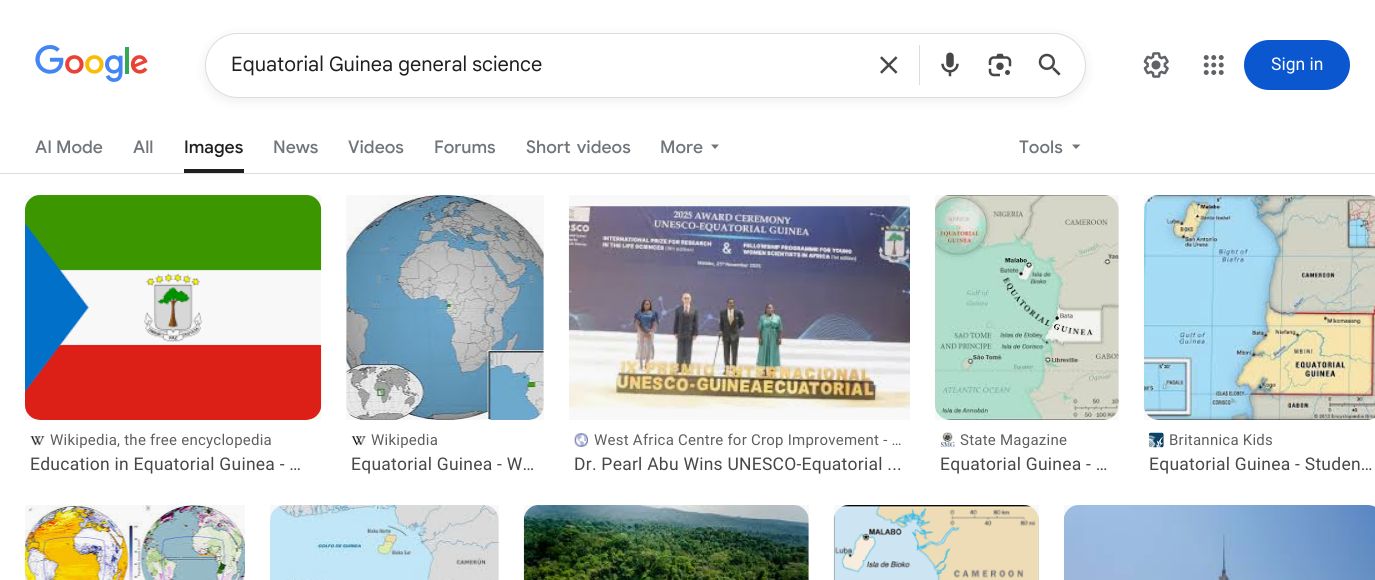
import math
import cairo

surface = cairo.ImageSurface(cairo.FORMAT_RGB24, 1375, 580)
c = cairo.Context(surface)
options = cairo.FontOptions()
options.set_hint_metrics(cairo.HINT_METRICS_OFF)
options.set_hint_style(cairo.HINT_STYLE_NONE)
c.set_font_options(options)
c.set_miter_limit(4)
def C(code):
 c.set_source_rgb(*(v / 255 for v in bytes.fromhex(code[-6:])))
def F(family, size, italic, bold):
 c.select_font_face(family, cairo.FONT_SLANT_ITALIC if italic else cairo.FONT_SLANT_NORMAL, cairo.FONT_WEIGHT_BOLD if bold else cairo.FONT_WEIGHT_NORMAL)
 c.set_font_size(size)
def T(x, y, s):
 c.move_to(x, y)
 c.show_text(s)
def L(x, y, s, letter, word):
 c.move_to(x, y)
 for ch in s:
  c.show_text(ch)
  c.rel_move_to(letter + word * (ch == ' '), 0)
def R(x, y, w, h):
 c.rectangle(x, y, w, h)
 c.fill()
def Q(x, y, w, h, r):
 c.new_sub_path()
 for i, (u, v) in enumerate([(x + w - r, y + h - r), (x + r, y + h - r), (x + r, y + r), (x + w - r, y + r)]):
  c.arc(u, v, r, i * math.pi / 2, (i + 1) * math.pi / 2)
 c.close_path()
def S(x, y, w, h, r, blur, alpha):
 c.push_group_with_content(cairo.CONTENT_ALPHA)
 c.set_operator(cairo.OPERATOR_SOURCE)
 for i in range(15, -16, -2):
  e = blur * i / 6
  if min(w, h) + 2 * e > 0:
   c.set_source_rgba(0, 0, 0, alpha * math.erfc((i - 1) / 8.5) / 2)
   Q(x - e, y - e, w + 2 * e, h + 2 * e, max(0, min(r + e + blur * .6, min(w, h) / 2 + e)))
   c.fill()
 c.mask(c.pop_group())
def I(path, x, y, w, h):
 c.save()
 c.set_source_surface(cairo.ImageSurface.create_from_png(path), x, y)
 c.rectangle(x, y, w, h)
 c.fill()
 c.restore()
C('ffffff')
c.paint()
I('1.png',35,45,113,37)
C('1f1f1f')
S(205,36,881,65,32.5,6,.08)
C('ffffff')
Q(205.5,33.5,880,64,32)
c.fill_preserve()
C('dadce0')
c.set_line_width(1)
c.stroke()
F('Google Sans',20,0,0)
C('1f1f1f')
T(231,71,'Equatorial Guinea general science')
I('2.png',880,56,18,18)
C('dadce0')
R(919,45,1,40)
I('3.png',941,52,18,25)
I('4.png',988,53,24,24)
I('5.png',1038,53,23,23)
I('6.png',1143,52,26,26)
I('7.png',1203,55,21,20)
C('0b57d0')
Q(1244,40,106,50,25)
c.fill()
F('Roboto',17.5,0,0)
C('ffffff')
T(1271,70,'Sign in')
F('Google Sans Medium',17.5,0,0)
C('70757a')
T(35,153,'AI Mode')
T(133,153,'All')
C('1f1f1f')
R(184,169,60,4)
T(184,153,'Images')
C('70757a')
T(273,153,'News')
T(348,153,'Videos')
T(434,153,'Forums')
L(526,153,'Short videos',0,2)
T(660,153,'More')
c.new_path()
c.move_to(711,144.5)
c.line_to(715,149)
c.line_to(719,144.5)
c.close_path()
c.fill()
T(1019,153,'Tools')
c.new_path()
c.move_to(1072,144.5)
c.line_to(1076,149)
c.line_to(1080.5,144.5)
c.close_path()
c.fill()
C('dadce0')
R(0,173,1375,1)
I('8.png',25,195,297,225)
c.set_source_rgba(0,0,0,0.03)
R(25,195,296,225)
I('9.png',30,436,15,10)
F('Roboto',15,0,0)
C('5e5e5e')
L(50,445,'Wikipedia, the free encyclopedia',.25,0)
F('Roboto',17.5,0,0)
C('474747')
L(30,470,'Education in Equatorial Guinea - …',.25,0)
I('10.png',346,195,198,225)
c.set_source_rgba(0,0,0,0.03)
R(346,195,198,225)
I('11.png',351,436,15,10)
F('Roboto',15,0,0)
C('5e5e5e')
L(371,445,'Wikipedia',.25,0)
F('Roboto',17.5,0,0)
C('474747')
L(351,470,'Equatorial Guinea - W…',.25,0)
I('12.png',568,206,342,203)
c.set_source_rgba(0,0,0,0.03)
R(569,195,341,225)
I('13.png',574,433,14,14)
F('Roboto',15,0,0)
C('5e5e5e')
L(594,445,'West Africa Centre for Crop Improvement - …',.25,0)
F('Roboto',17.5,0,0)
C('474747')
L(574,470,'Dr. Pearl Abu Wins UNESCO-Equatorial ...',.25,0)
I('14.png',935,195,184,225)
c.set_source_rgba(0,0,0,0.03)
R(935,195,184,225)
I('15.png',940,432,15,16)
F('Roboto',15,0,0)
C('5e5e5e')
L(960,445,'State Magazine',.25,0)
F('Roboto',17.5,0,0)
C('474747')
L(940,470,'Equatorial Guinea - …',.25,0)
I('16.png',1143,195,232,225)
c.set_source_rgba(0,0,0,0.03)
R(1144,195,231,225)
I('17.png',1148,432,16,16)
F('Roboto',15,0,0)
C('5e5e5e')
L(1169,445,'Britannica Kids',.25,0)
F('Roboto',17.5,0,0)
C('474747')
L(1149,470,'Equatorial Guinea - Studen…',.25,0)
I('18.png',25,505,220,75)
c.set_source_rgba(0,0,0,0.03)
R(25,505,220,75)
I('19.png',270,505,229,75)
R(270,505,229,75)
I('20.png',523,505,286,75)
R(524,505,285,75)
I('21.png',833,505,206,75)
R(834,505,205,75)
I('22.png',1063,505,312,75)
R(1064,505,311,75)
surface.write_to_png('o.png')
